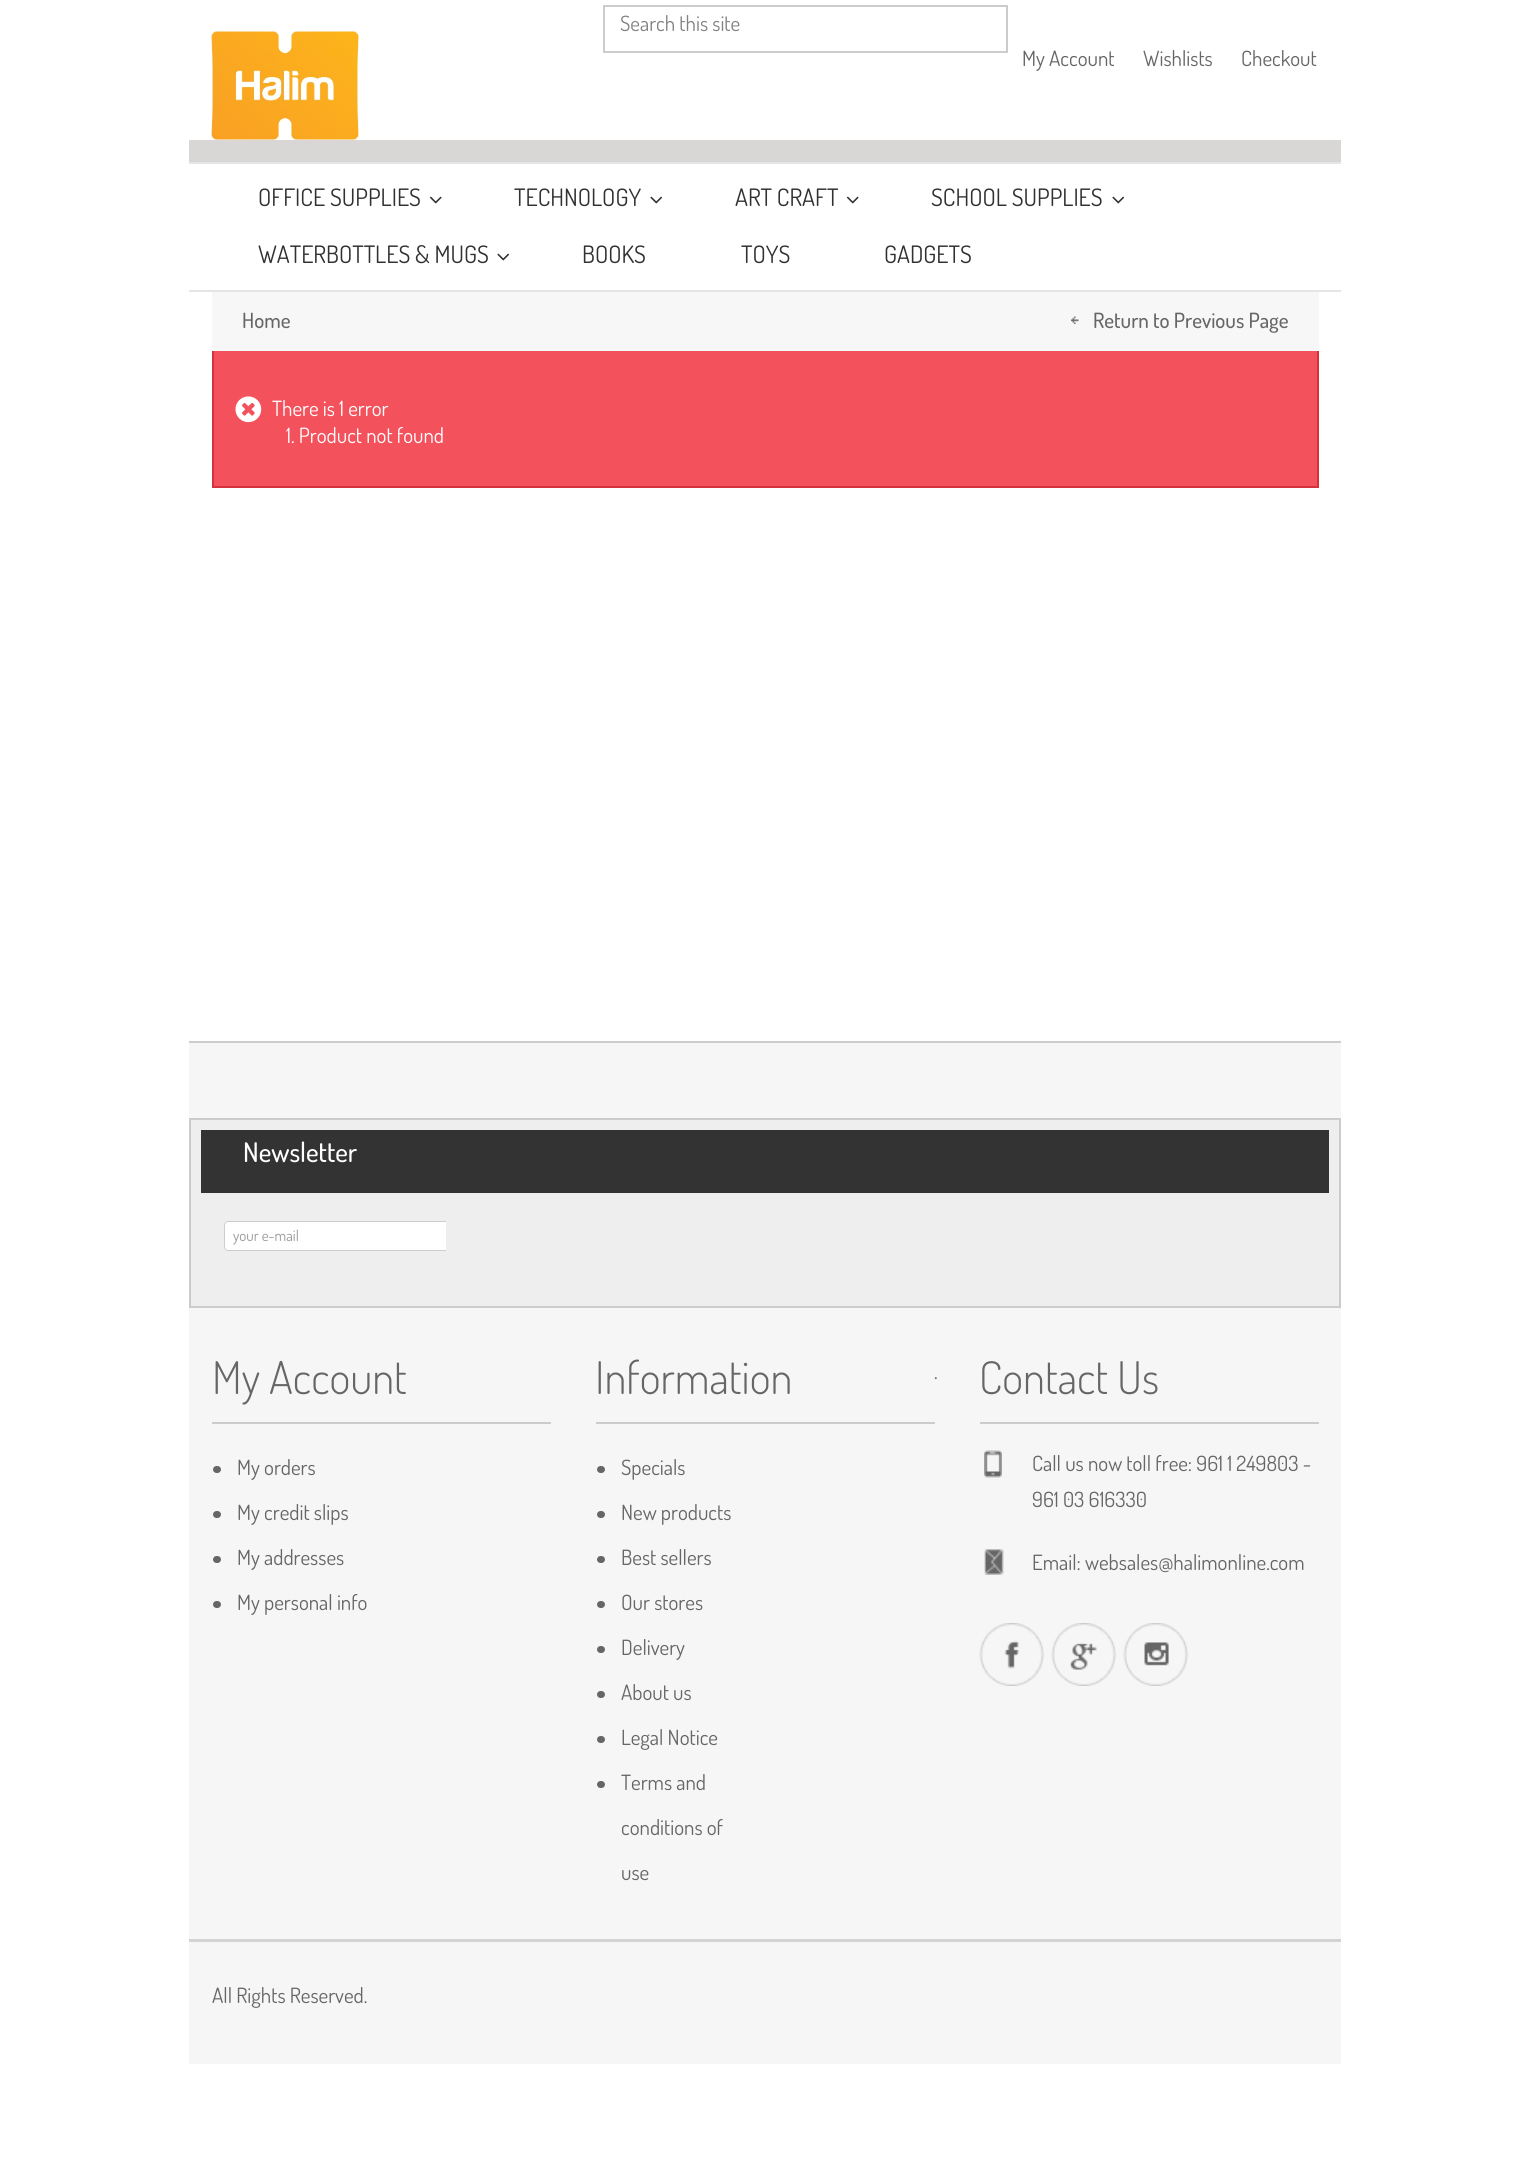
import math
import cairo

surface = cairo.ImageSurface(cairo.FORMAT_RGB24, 1530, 2180)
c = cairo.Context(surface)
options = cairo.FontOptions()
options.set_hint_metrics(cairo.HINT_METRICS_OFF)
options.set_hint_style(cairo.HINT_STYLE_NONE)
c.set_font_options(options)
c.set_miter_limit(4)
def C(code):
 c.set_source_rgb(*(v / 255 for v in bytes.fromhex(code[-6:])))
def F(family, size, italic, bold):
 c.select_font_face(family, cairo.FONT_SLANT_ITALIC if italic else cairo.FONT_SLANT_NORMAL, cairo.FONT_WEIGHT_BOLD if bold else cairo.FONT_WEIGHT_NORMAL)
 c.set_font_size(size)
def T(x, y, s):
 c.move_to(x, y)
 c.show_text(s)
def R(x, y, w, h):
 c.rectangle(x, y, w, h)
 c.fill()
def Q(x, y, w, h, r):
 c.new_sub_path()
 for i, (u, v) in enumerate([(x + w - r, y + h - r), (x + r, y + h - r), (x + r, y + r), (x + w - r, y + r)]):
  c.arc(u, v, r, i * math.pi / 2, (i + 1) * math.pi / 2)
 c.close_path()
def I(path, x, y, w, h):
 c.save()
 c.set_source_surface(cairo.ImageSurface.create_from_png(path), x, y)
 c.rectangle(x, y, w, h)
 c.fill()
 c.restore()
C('ffffff')
c.paint()
C('d8d7d5')
R(189,140,1152,22)
I('1.png',211,31,148,109)
c.rectangle(604,6,403,46)
C('cccccc')
c.stroke()
F('Dosis',21,0,0)
C('828282')
T(620,31,'Search this site')
C('666666')
T(1022,66,'My Account')
T(1143,66,'Wishlists')
T(1241,66,'Checkout')
C('e5e5e5')
R(189,162,1152,2)
C('f3515c')
R(214,351,1103,135)
c.rectangle(213,292,1105,195)
C('d4323d')
c.stroke()
C('e5e5e5')
R(189,290,1152,2)
F('Dosis',24,0,0)
C('313131')
T(258,206,'OFFICE SUPPLIES')
I('2.png',429,196,13,8)
T(514,206,'TECHNOLOGY')
I('3.png',650,196,13,8)
T(735,206,'ART CRAFT')
I('2.png',846,196,13,8)
T(931,206,'SCHOOL SUPPLIES')
I('3.png',1112,196,13,8)
T(258,263,'WATERBOTTLES & MUGS')
I('3.png',497,253,13,8)
T(582,263,'BOOKS')
T(741,263,'TOYS')
T(884,263,'GADGETS')
C('f7f7f7')
R(212,292,1107,59)
F('Dosis Medium',21,0,0)
C('666666')
T(242,328,'Home')
I('4.png',1071,316,8,8)
T(1093,328,'Return to Previous Page')
I('5.png',235,396,27,27)
F('Dosis',21,0,0)
C('ffffff')
T(272,416,'There is 1 error')
T(286,443,'1. Product not found')
C('f6f6f6')
R(189,1043,1152,1021)
C('d3d3d3')
R(189,1939,1152,3)
C('cccccc')
R(189,1041,1152,2)
C('eeeeee')
c.rectangle(190,1119,1150,188)
c.fill_preserve()
C('cccccc')
c.stroke()
C('333333')
R(201,1130,1128,63)
F('Dosis Medium',27,0,0)
C('ffffff')
T(243,1162,'Newsletter')
c.new_path()
c.move_to(229,1221)
c.line_to(446,1221)
c.line_to(446,1251)
c.line_to(229,1251)
c.curve_to(226,1251,224,1249,224,1246)
c.line_to(224,1226)
c.curve_to(224,1223,226,1221,229,1221)
c.close_path()
c.fill()
C('cccccc')
c.set_fill_rule(cairo.FILL_RULE_EVEN_ODD)
c.new_path()
c.move_to(228,1221)
c.line_to(446,1221)
c.line_to(446,1251)
c.line_to(228,1251)
c.curve_to(226,1251,224,1249,224,1246)
c.line_to(224,1226)
c.curve_to(224,1223,226,1221,228,1221)
c.close_path()
c.move_to(228,1222)
c.line_to(446,1222)
c.line_to(446,1250)
c.line_to(228,1250)
c.curve_to(226,1250,225,1248,225,1246)
c.line_to(225,1226)
c.curve_to(225,1224,226,1222,228,1222)
c.close_path()
c.fill()
c.save()
c.set_fill_rule(cairo.FILL_RULE_WINDING)
c.rectangle(233,1227,205,18)
c.clip()
F('Dosis',15,0,0)
C('999999')
T(233,1241,'your e-mail')
c.restore()
R(212,1422,339,2)
F('Dosis Light',45,0,0)
C('666666')
T(212,1394,'My Account')
Q(213,1466,8,7,3.5)
c.fill()
F('Dosis',21,0,0)
T(237,1475,'My orders')
Q(213,1511,8,7,3.5)
c.fill()
T(237,1520,'My credit slips')
Q(213,1556,8,7,3.5)
c.fill()
T(237,1565,'My addresses')
Q(213,1601,8,7,3.5)
c.fill()
T(237,1610,'My personal info')
C('cccccc')
R(596,1422,339,2)
F('Dosis Light',45,0,0)
C('666666')
T(595,1394,'Information')
F('Dosis',21,0,0)
T(934,1379,'.')
Q(597,1466,8,7,3.5)
c.fill()
T(621,1475,'Specials')
Q(597,1511,8,7,3.5)
c.fill()
T(621,1520,'New products')
Q(597,1556,8,7,3.5)
c.fill()
T(621,1565,'Best sellers')
Q(597,1601,8,7,3.5)
c.fill()
T(621,1610,'Our stores')
Q(597,1646,8,7,3.5)
c.fill()
T(621,1655,'Delivery')
Q(597,1691,8,7,3.5)
c.fill()
T(621,1700,'About us')
Q(597,1736,8,7,3.5)
c.fill()
T(621,1745,'Legal Notice')
Q(597,1781,8,7,3.5)
c.fill()
T(621,1790,'Terms and')
T(621,1835,'conditions of')
T(621,1880,'use')
C('cccccc')
R(980,1422,339,2)
F('Dosis Light',45,0,0)
C('666666')
T(979,1394,'Contact Us')
I('6.png',984,1450,18,28)
F('Dosis',21,0,0)
T(1032,1471,'Call us now toll free: 961 1 249803 -')
T(1032,1507,'961 03 616330')
I('7.png',984,1549,20,26)
T(1032,1570,'Email: websales@halimonline.com')
I('8.png',979,1623,65,63)
I('9.png',1051,1623,65,63)
I('10.png',1123,1623,65,63)
T(212,2003,'All Rights Reserved.')
surface.write_to_png('o.png')
